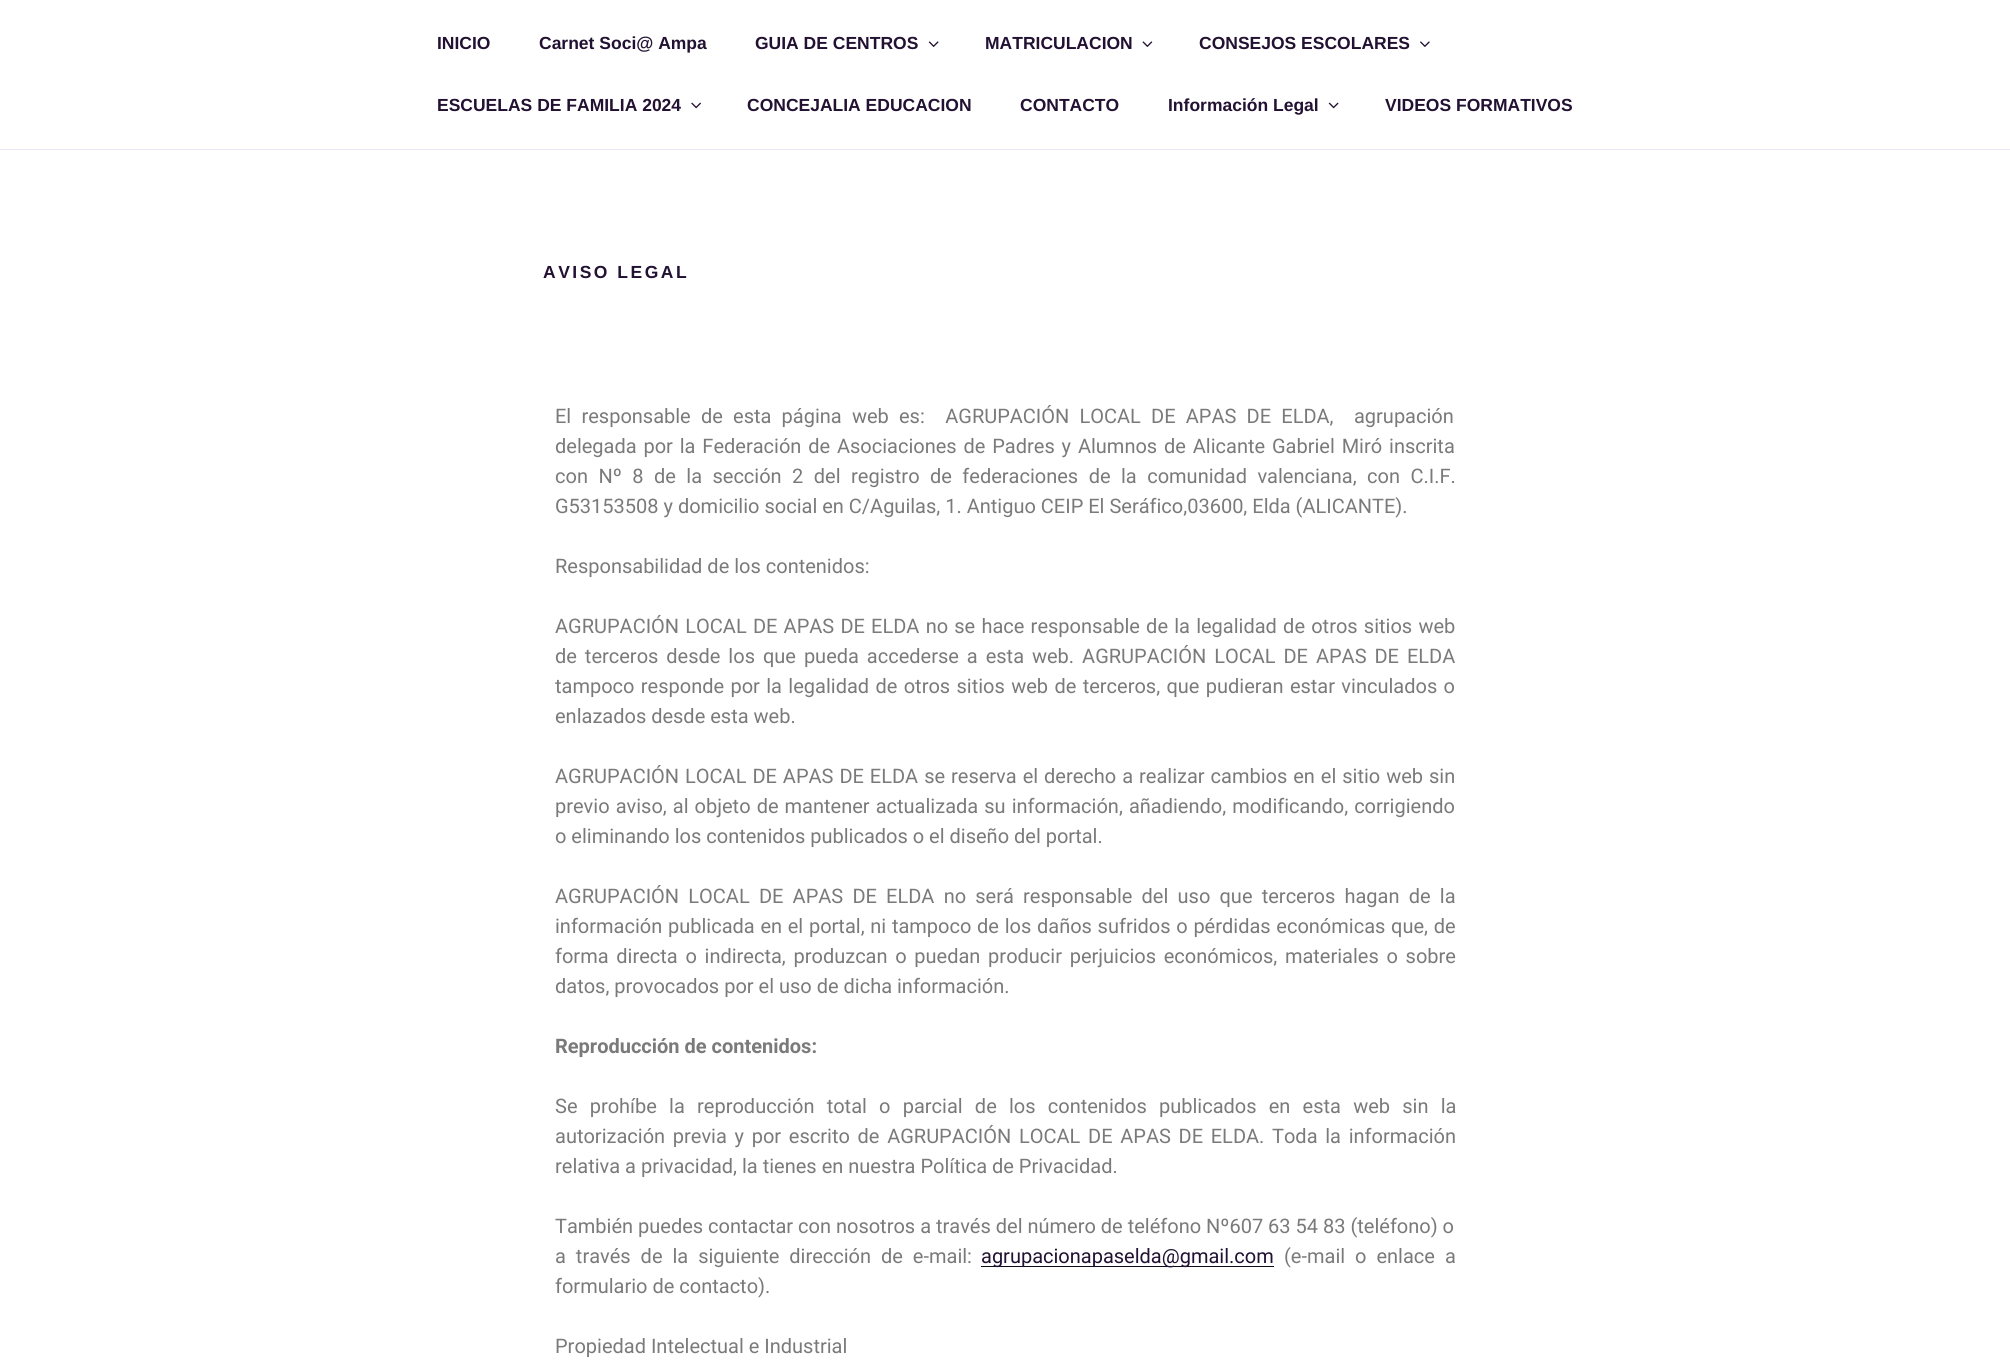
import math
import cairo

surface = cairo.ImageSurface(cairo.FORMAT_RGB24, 2010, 1368)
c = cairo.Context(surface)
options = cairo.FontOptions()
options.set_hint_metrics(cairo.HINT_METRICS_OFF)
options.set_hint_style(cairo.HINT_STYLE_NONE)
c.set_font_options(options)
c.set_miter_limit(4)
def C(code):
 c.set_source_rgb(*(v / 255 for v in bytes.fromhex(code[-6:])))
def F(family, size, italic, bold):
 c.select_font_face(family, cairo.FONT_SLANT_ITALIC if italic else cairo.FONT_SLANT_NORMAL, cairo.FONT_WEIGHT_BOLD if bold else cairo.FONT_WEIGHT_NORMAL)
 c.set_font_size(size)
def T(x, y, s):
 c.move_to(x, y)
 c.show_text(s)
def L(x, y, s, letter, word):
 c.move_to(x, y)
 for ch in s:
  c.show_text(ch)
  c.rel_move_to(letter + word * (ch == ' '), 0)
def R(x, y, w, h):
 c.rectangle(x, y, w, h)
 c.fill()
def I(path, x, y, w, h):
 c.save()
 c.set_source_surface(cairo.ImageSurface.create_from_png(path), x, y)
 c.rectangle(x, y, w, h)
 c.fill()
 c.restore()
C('ffffff')
c.paint()
C('ede4f6')
R(0,149,2010,1)
F('Liberation Sans',17.5,0,1)
C('221132')
T(437,49,'INICIO')
T(539,49,'Carnet Soci@ Ampa')
T(755,49,'GUIA DE CENTROS')
I('1.png',928,41,11,6)
T(985,49,'MATRICULACION')
I('2.png',1142,41,11,6)
T(1199,49,'CONSEJOS ESCOLARES')
I('3.png',1420,41,10,6)
T(437,111,'ESCUELAS DE FAMILIA 2024')
I('4.png',691,102,10,7)
T(747,111,'CONCEJALIA EDUCACION')
T(1020,111,'CONTACTO')
T(1168,111,'Información Legal')
I('5.png',1328,102,11,7)
T(1385,111,'VIDEOS FORMATIVOS')
L(543,278,'AVISO LEGAL',2.5,0)
F('Roboto',20,0,0)
C('7a7a7a')
L(555,423,'El responsable de esta página web es:  AGRUPACIÓN LOCAL DE APAS DE ELDA,  agrupación',0,5.25)
L(555,453,'delegada por la Federación de Asociaciones de Padres y Alumnos de Alicante Gabriel Miró inscrita',0,1.9)
L(555,483,'con Nº 8 de la sección 2 del registro de federaciones de la comunidad valenciana, con C.I.F.',0,5.5)
T(555,513,'G53153508 y domicilio social en C/Aguilas, 1. Antiguo CEIP El Seráfico,03600, Elda (ALICANTE).')
T(555,573,'Responsabilidad de los contenidos:')
L(555,633,'AGRUPACIÓN LOCAL DE APAS DE ELDA no se hace responsable de la legalidad de otros sitios web',0,1.25)
L(555,663,'de terceros desde los que pueda accederse a esta web. AGRUPACIÓN LOCAL DE APAS DE ELDA',0,3)
L(555,693,'tampoco responde por la legalidad de otros sitios web de terceros, que pudieran estar vinculados o',0,1.4)
T(555,723,'enlazados desde esta web.')
L(555,783,'AGRUPACIÓN LOCAL DE APAS DE ELDA se reserva el derecho a realizar cambios en el sitio web sin',0,1)
L(555,813,'previo aviso, al objeto de mantener actualizada su información, añadiendo, modificando, corrigiendo',0,1.1)
T(555,843,'o eliminando los contenidos publicados o el diseño del portal.')
L(555,903,'AGRUPACIÓN LOCAL DE APAS DE ELDA no será responsable del uso que terceros hagan de la',0,4.25)
L(555,933,'información publicada en el portal, ni tampoco de los daños sufridos o pérdidas económicas que, de',0,.75)
L(555,963,'forma directa o indirecta, produzcan o puedan producir perjuicios económicos, materiales o sobre',0,2.75)
T(555,993,'datos, provocados por el uso de dicha información.')
F('Roboto',20,0,1)
T(555,1053,'Reproducción de contenidos:')
F('Roboto',20,0,0)
L(555,1113,'Se prohíbe la reproducción total o parcial de los contenidos publicados en esta web sin la',0,7.25)
L(555,1143,'autorización previa y por escrito de AGRUPACIÓN LOCAL DE APAS DE ELDA. Toda la información',0,2.75)
T(555,1173,'relativa a privacidad, la tienes en nuestra Política de Privacidad.')
T(555,1233,'También puedes contactar con nosotros a través del número de teléfono Nº607 63 54 83 (teléfono) o')
L(555,1263,'a través de la siguiente dirección de e-mail:',0,5)
C('100817')
R(981,1266,293,1)
C('221132')
T(981,1263,'agrupacionapaselda@gmail.com')
C('7a7a7a')
L(1284,1263,'(e-mail o enlace a',0,5)
T(555,1293,'formulario de contacto).')
T(555,1353,'Propiedad Intelectual e Industrial')
surface.write_to_png('o.png')
